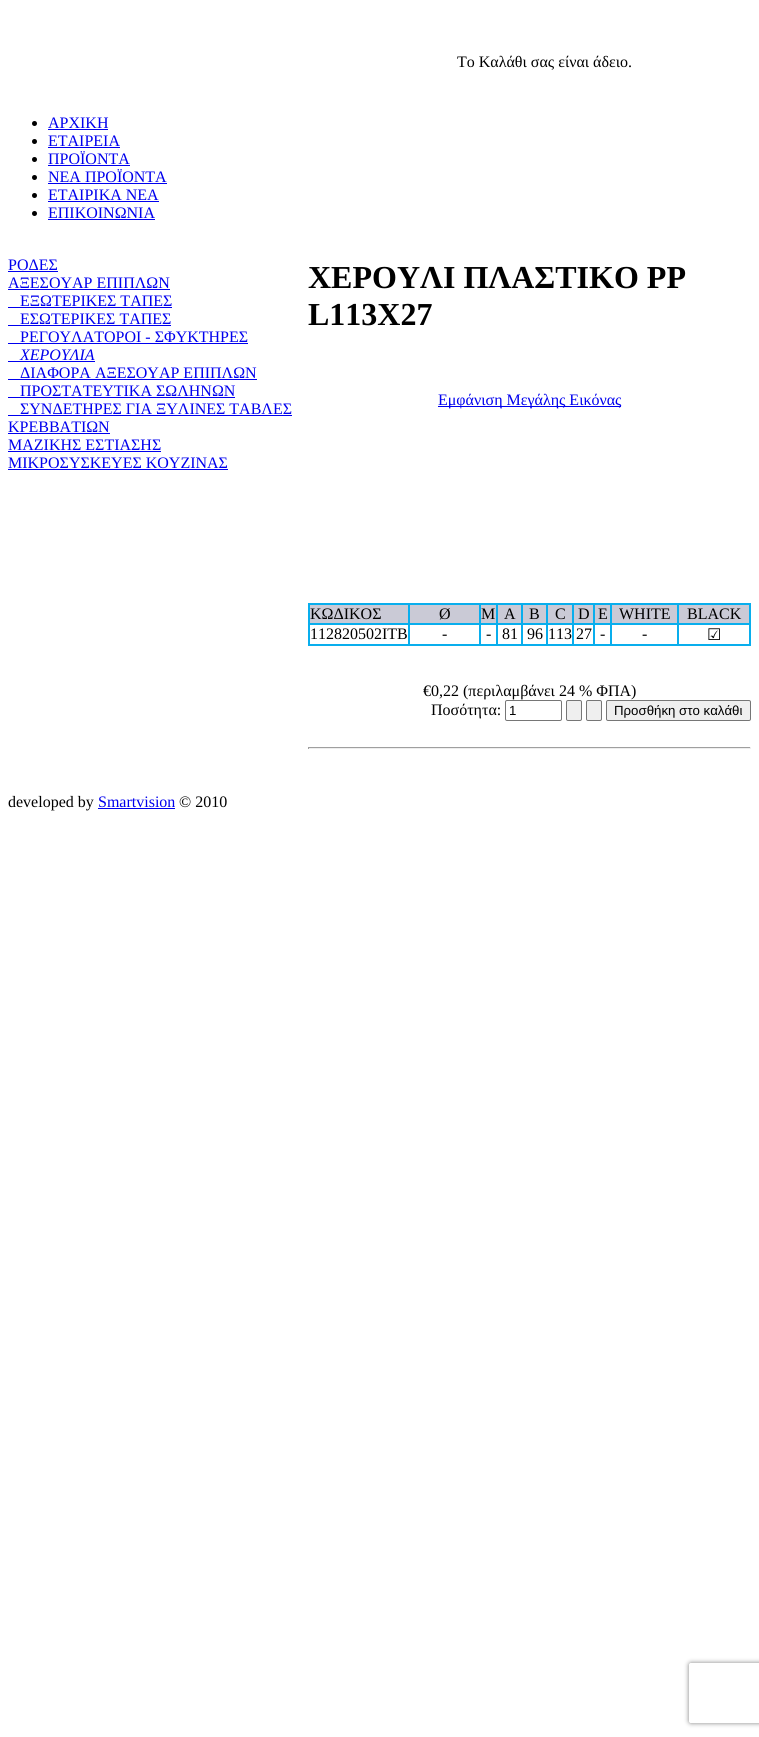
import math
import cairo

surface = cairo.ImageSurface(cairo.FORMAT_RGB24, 759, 1737)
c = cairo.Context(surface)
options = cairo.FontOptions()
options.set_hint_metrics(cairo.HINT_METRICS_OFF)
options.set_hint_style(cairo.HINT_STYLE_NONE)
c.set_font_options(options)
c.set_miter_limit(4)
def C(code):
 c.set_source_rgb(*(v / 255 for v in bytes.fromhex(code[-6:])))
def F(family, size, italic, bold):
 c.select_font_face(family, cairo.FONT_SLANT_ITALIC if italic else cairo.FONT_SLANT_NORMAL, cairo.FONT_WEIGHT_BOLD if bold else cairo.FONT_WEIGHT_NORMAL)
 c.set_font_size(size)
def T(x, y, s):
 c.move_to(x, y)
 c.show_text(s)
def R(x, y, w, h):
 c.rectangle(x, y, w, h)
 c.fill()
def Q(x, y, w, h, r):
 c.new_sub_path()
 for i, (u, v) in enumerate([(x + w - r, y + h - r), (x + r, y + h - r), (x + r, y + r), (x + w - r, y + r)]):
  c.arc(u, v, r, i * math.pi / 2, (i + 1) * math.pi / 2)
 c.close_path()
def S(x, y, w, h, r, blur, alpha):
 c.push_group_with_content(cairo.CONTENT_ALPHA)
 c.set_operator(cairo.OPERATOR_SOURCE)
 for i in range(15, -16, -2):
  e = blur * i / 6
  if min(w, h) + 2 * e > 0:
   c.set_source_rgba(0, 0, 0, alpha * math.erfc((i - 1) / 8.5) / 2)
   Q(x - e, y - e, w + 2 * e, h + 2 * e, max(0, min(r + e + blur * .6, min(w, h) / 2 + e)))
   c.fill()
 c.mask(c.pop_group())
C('ffffff')
c.paint()
F('Liberation Serif',16,0,0)
C('000000')
T(457,67,'Το Καλάθι σας είναι άδειο.')
c.new_path()
c.arc(34.5,123.5,2.5,0,2 * math.pi)
c.fill()
C('0000ee')
T(48,128,'ΑΡΧΙΚΗ')
R(48,129,60,1)
C('000000')
c.new_path()
c.arc(34.5,141.5,2.5,0,2 * math.pi)
c.fill()
C('0000ee')
T(48,146,'ΕΤΑΙΡΕΙΑ')
R(48,147,72,1)
C('000000')
c.new_path()
c.arc(34.5,159.5,2.5,0,2 * math.pi)
c.fill()
C('0000ee')
T(48,164,'ΠΡΟΪΟΝΤΑ')
R(48,165,82,1)
C('000000')
c.new_path()
c.arc(34.5,177.5,2.5,0,2 * math.pi)
c.fill()
C('0000ee')
T(48,182,'ΝΕΑ ΠΡΟΪΟΝΤΑ')
R(48,183,119,1)
C('000000')
c.new_path()
c.arc(34.5,195.5,2.5,0,2 * math.pi)
c.fill()
C('0000ee')
T(48,200,'ΕΤΑΙΡΙΚΑ ΝΕΑ')
R(48,201,111,1)
C('000000')
c.new_path()
c.arc(34.5,213.5,2.5,0,2 * math.pi)
c.fill()
C('0000ee')
T(48,218,'ΕΠΙΚΟΙΝΩΝΙΑ')
R(48,219,107,1)
T(8,270,'ΡΟΔΕΣ')
R(8,271,50,1)
T(8,288,'ΑΞΕΣΟΥΑΡ ΕΠΙΠΛΩΝ')
R(8,289,162,1)
T(20,306,'ΕΞΩΤΕΡΙΚΕΣ ΤΑΠΕΣ')
R(8,307,164,1)
T(20,324,'ΕΣΩΤΕΡΙΚΕΣ ΤΑΠΕΣ')
R(8,325,163,1)
T(20,342,'ΡΕΓΟΥΛΑΤΟΡΟΙ - ΣΦΥΚΤΗΡΕΣ')
R(8,343,240,1)
F('Liberation Serif',16,1,0)
T(20,360,'ΧΕΡΟΥΛΙΑ')
R(8,361,87,1)
F('Liberation Serif',16,0,0)
T(20,378,'ΔΙΑΦΟΡΑ ΑΞΕΣΟΥΑΡ ΕΠΙΠΛΩΝ')
R(8,379,249,1)
T(20,396,'ΠΡΟΣΤΑΤΕΥΤΙΚΑ ΣΩΛΗΝΩΝ')
R(8,397,227,1)
T(20,414,'ΣΥΝΔΕΤΗΡΕΣ ΓΙΑ ΞΥΛΙΝΕΣ ΤΑΒΛΕΣ')
R(8,415,284,1)
T(8,432,'ΚΡΕΒΒΑΤΙΩΝ')
R(8,433,102,1)
T(8,450,'ΜΑΖΙΚΗΣ ΕΣΤΙΑΣΗΣ')
R(8,451,153,1)
T(8,468,'ΜΙΚΡΟΣΥΣΚΕΥΕΣ ΚΟΥΖΙΝΑΣ')
R(8,469,220,1)
F('Liberation Serif',32,0,1)
C('000000')
T(308,288,'ΧΕΡΟΥΛΙ ΠΛΑΣΤΙΚΟ PP')
T(308,325,'L113X27')
C('0000ee')
R(438,406,183,1)
F('Liberation Serif',16,0,0)
T(438,405,'Εμφάνιση Μεγάλης Εικόνας')
c.rectangle(308.5,603.5,442,42)
C('09aeed')
c.set_line_width(1)
c.stroke()
C('cacad6')
c.rectangle(309.5,604.5,99,19)
c.fill_preserve()
C('09aeed')
c.stroke()
C('000000')
T(310,619,'ΚΩΔΙΚΟΣ')
C('cacad6')
c.rectangle(409.5,604.5,70,19)
c.fill_preserve()
C('09aeed')
c.stroke()
C('000000')
T(439,619,'Ø')
C('cacad6')
c.rectangle(480.5,604.5,16,19)
c.fill_preserve()
C('09aeed')
c.stroke()
C('000000')
T(481,619,'M')
C('cacad6')
c.rectangle(497.5,604.5,24,19)
c.fill_preserve()
C('09aeed')
c.stroke()
C('000000')
T(504,619,'Α')
C('cacad6')
c.rectangle(522.5,604.5,24,19)
c.fill_preserve()
C('09aeed')
c.stroke()
C('000000')
T(529,619,'Β')
C('cacad6')
c.rectangle(547.5,604.5,25,19)
c.fill_preserve()
C('09aeed')
c.stroke()
C('000000')
T(555,619,'C')
C('cacad6')
c.rectangle(573.5,604.5,20,19)
c.fill_preserve()
C('09aeed')
c.stroke()
C('000000')
T(578,619,'D')
C('cacad6')
c.rectangle(594.5,604.5,16,19)
c.fill_preserve()
C('09aeed')
c.stroke()
C('000000')
T(598,619,'E')
C('cacad6')
c.rectangle(611.5,604.5,66,19)
c.fill_preserve()
C('09aeed')
c.stroke()
C('000000')
T(619,619,'WHITE')
C('cacad6')
c.rectangle(678.5,604.5,71,19)
c.fill_preserve()
C('09aeed')
c.stroke()
C('000000')
T(687,619,'BLACK')
c.rectangle(309.5,624.5,99,20)
C('09aeed')
c.stroke()
C('000000')
T(310,639,'112820502ITB')
c.rectangle(409.5,624.5,70,20)
C('09aeed')
c.stroke()
C('000000')
T(442,639,'-')
c.rectangle(480.5,624.5,16,20)
C('09aeed')
c.stroke()
C('000000')
T(486,639,'-')
c.rectangle(497.5,624.5,24,20)
C('09aeed')
c.stroke()
C('000000')
T(502,639,'81')
c.rectangle(522.5,624.5,24,20)
C('09aeed')
c.stroke()
C('000000')
T(527,639,'96')
c.rectangle(547.5,624.5,25,20)
C('09aeed')
c.stroke()
C('000000')
T(548,639,'113')
c.rectangle(573.5,624.5,20,20)
C('09aeed')
c.stroke()
C('000000')
T(576,639,'27')
c.rectangle(594.5,624.5,16,20)
C('09aeed')
c.stroke()
C('000000')
T(600,639,'-')
c.rectangle(611.5,624.5,66,20)
C('09aeed')
c.stroke()
C('000000')
T(642,639,'-')
c.rectangle(678.5,624.5,71,20)
C('09aeed')
c.stroke()
F('DejaVu Sans',16,0,0)
C('000000')
T(707,640,'☑')
F('Liberation Serif',16,0,0)
T(423,696,'€0,22 (περιλαμβάνει 24 % ΦΠΑ)')
T(431,715,'Ποσότητα:')
Q(505.5,700.5,56,20,1.5)
C('767676')
c.stroke()
F('Liberation Sans',13.25,0,0)
C('000000')
T(509,715,'1')
C('efefef')
Q(566.5,700.5,15,20,1.5)
c.fill_preserve()
C('767676')
c.stroke()
C('efefef')
Q(586.5,700.5,15,20,1.5)
c.fill_preserve()
C('767676')
c.stroke()
C('efefef')
Q(606.5,700.5,144,20,1.5)
c.fill_preserve()
C('767676')
c.stroke()
C('000000')
T(614,715,'Προσθήκη στο καλάθι')
C('9f9f9f')
R(308,747,443,1)
C('eeeeee')
R(750,747,1,2)
R(308,748,443,1)
C('9f9f9f')
R(308,747,1,2)
F('Liberation Serif',16,0,0)
C('000000')
T(8,807,'developed by')
C('0000ee')
T(98,807,'Smartvision')
R(98,808,77,1)
C('000000')
T(179,807,'© 2010')
c.save()
c.set_fill_rule(cairo.FILL_RULE_EVEN_ODD)
c.new_path()
c.move_to(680,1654)
c.line_to(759,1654)
c.line_to(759,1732)
c.line_to(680,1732)
c.close_path()
c.move_to(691,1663)
c.line_to(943,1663)
c.curve_to(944,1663,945,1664,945,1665)
c.line_to(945,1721)
c.curve_to(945,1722,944,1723,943,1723)
c.line_to(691,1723)
c.curve_to(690,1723,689,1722,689,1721)
c.line_to(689,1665)
c.curve_to(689,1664,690,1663,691,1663)
c.close_path()
c.clip()
C('808080')
S(689,1663,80,60,2,2.5,1)
c.restore()
surface.write_to_png('o.png')
